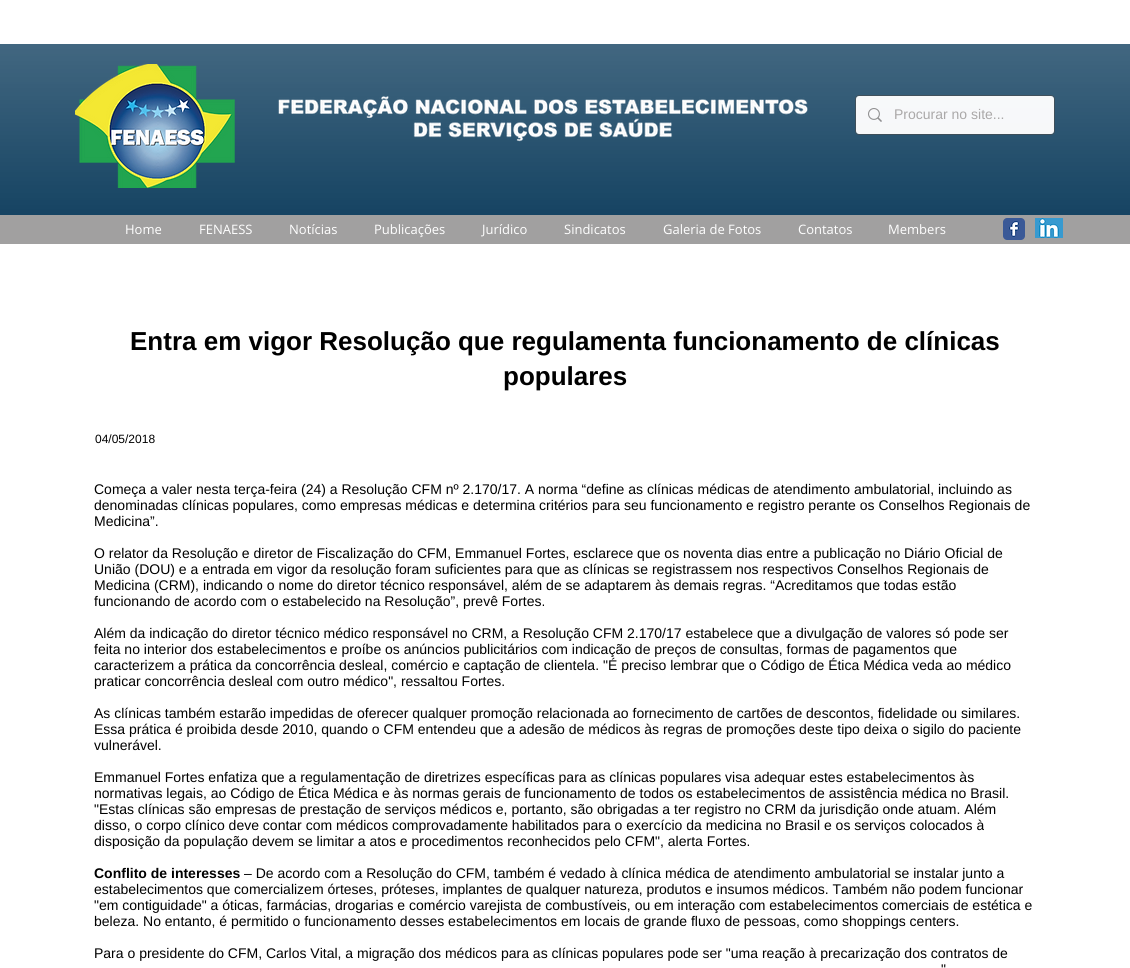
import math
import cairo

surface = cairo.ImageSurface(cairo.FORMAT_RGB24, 1130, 968)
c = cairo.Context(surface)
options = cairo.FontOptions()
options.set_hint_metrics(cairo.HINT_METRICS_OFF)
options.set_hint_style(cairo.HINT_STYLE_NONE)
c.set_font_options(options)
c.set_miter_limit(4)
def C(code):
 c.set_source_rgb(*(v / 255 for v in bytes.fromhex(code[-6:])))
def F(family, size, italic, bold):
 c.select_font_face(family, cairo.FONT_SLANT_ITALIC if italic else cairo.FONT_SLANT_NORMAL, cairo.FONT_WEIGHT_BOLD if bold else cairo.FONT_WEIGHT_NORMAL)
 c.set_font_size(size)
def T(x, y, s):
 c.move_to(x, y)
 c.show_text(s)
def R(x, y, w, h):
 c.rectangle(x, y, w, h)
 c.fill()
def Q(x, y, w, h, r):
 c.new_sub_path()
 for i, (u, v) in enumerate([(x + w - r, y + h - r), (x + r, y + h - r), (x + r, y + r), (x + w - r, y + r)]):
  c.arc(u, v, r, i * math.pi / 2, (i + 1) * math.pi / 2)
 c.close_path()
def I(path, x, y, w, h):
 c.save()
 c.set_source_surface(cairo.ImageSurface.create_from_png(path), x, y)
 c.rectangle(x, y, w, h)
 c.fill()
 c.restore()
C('ffffff')
c.paint()
C('003254')
R(0,44,1130,171)
I('1.png',0,44,1130,171)
I('2.png',75,64,160,124)
I('3.png',278,96,530,46)
Q(855.5,95.5,199,39,3.5)
c.set_source_rgba(0.29,0.29,0.29,0.6)
c.set_line_width(1)
c.stroke()
c.set_source_rgba(1,1,1,0.96)
Q(856,96,198,38,3)
c.fill()
I('4.png',868,108,14,14)
F('Liberation Sans',14,0,0)
C('aaa8a8')
T(894,119,'Procurar no site...')
C('a1a0a0')
R(0,215,1130,29)
F('Open Sans',13,0,0)
C('ffffff')
T(125,234,'Home')
T(199,234,'FENAESS')
T(289,234,'Notícias')
T(374,234,'Publicações')
T(482,234,'Jurídico')
T(564,234,'Sindicatos')
T(663,234,'Galeria de Fotos')
T(798,234,'Contatos')
T(888,234,'Members')
I('5.png',1003,218,22,22)
I('6.png',1035,218,28,20)
F('Liberation Sans',26,0,1)
C('000000')
T(130,350,'Entra em vigor Resolução que regulamenta funcionamento de clínicas')
T(503,385,'populares')
F('Liberation Sans',12,0,0)
T(95,443,'04/05/2018')
F('Liberation Sans',14,0,0)
T(94,494,'Começa a valer nesta terça-feira (24) a Resolução CFM nº 2.170/17. A norma “define as clínicas médicas de atendimento ambulatorial, incluindo as')
T(94,510,'denominadas clínicas populares, como empresas médicas e determina critérios para seu funcionamento e registro perante os Conselhos Regionais de')
T(94,526,'Medicina”.')
T(94,558,'O relator da Resolução e diretor de Fiscalização do CFM, Emmanuel Fortes, esclarece que os noventa dias entre a publicação no Diário Oficial de')
T(94,574,'União (DOU) e a entrada em vigor da resolução foram suficientes para que as clínicas se registrassem nos respectivos Conselhos Regionais de')
T(94,590,'Medicina (CRM), indicando o nome do diretor técnico responsável, além de se adaptarem às demais regras. “Acreditamos que todas estão')
T(94,606,'funcionando de acordo com o estabelecido na Resolução”, prevê Fortes.')
T(94,638,'Além da indicação do diretor técnico médico responsável no CRM, a Resolução CFM 2.170/17 estabelece que a divulgação de valores só pode ser')
T(94,654,'feita no interior dos estabelecimentos e proíbe os anúncios publicitários com indicação de preços de consultas, formas de pagamentos que')
T(94,670,'caracterizem a prática da concorrência desleal, comércio e captação de clientela. "É preciso lembrar que o Código de Ética Médica veda ao médico')
T(94,686,'praticar concorrência desleal com outro médico", ressaltou Fortes.')
T(94,718,'As clínicas também estarão impedidas de oferecer qualquer promoção relacionada ao fornecimento de cartões de descontos, fidelidade ou similares.')
T(94,734,'Essa prática é proibida desde 2010, quando o CFM entendeu que a adesão de médicos às regras de promoções deste tipo deixa o sigilo do paciente')
T(94,750,'vulnerável.')
T(94,782,'Emmanuel Fortes enfatiza que a regulamentação de diretrizes específicas para as clínicas populares visa adequar estes estabelecimentos às')
T(94,798,'normativas legais, ao Código de Ética Médica e às normas gerais de funcionamento de todos os estabelecimentos de assistência médica no Brasil.')
T(94,814,'"Estas clínicas são empresas de prestação de serviços médicos e, portanto, são obrigadas a ter registro no CRM da jurisdição onde atuam. Além')
T(94,830,'disso, o corpo clínico deve contar com médicos comprovadamente habilitados para o exercício da medicina no Brasil e os serviços colocados à')
T(94,846,'disposição da população devem se limitar a atos e procedimentos reconhecidos pelo CFM", alerta Fortes.')
F('Liberation Sans',14,0,1)
T(94,878,'Conflito de interesses')
F('Liberation Sans',14,0,0)
T(244,878,'– De acordo com a Resolução do CFM, também é vedado à clínica médica de atendimento ambulatorial se instalar junto a')
T(94,894,'estabelecimentos que comercializem órteses, próteses, implantes de qualquer natureza, produtos e insumos médicos. Também não podem funcionar')
T(94,910,'"em contiguidade" a óticas, farmácias, drogarias e comércio varejista de combustíveis, ou em interação com estabelecimentos comerciais de estética e')
T(94,926,'beleza. No entanto, é permitido o funcionamento desses estabelecimentos em locais de grande fluxo de pessoas, como shoppings centers.')
T(94,958,'Para o presidente do CFM, Carlos Vital, a migração dos médicos para as clínicas populares pode ser "uma reação à precarização dos contratos de')
T(941,974,'"')
surface.write_to_png('o.png')
